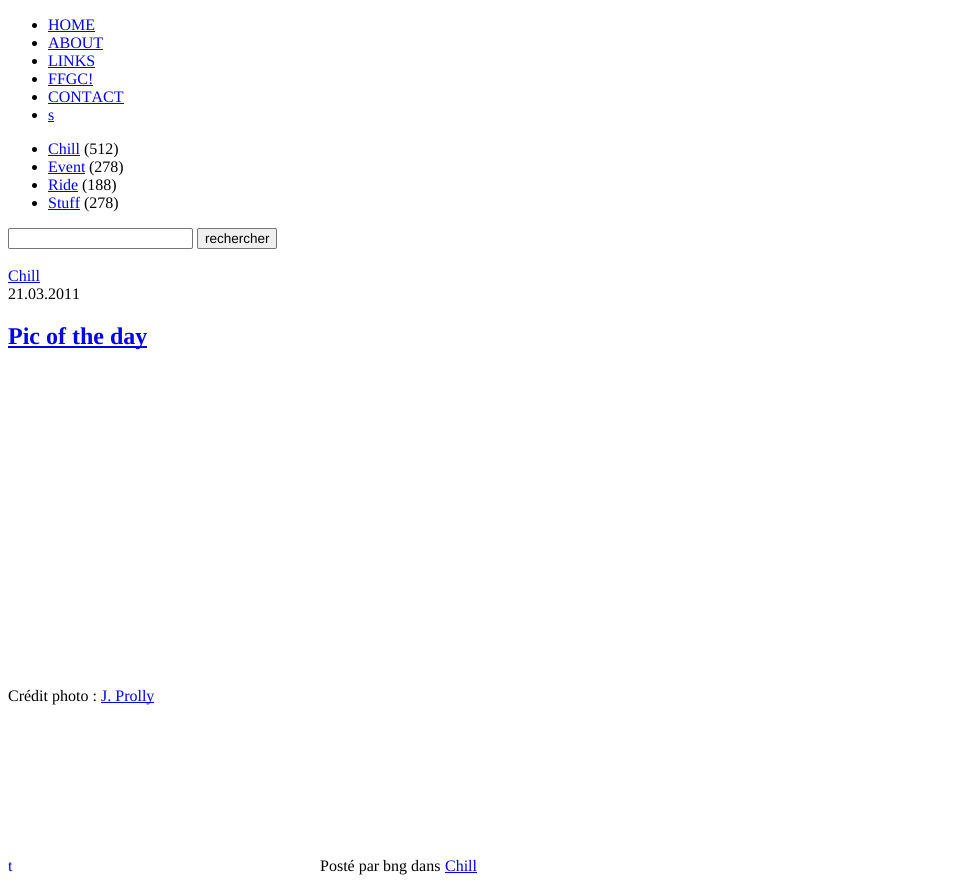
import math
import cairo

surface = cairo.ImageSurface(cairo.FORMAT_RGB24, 967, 883)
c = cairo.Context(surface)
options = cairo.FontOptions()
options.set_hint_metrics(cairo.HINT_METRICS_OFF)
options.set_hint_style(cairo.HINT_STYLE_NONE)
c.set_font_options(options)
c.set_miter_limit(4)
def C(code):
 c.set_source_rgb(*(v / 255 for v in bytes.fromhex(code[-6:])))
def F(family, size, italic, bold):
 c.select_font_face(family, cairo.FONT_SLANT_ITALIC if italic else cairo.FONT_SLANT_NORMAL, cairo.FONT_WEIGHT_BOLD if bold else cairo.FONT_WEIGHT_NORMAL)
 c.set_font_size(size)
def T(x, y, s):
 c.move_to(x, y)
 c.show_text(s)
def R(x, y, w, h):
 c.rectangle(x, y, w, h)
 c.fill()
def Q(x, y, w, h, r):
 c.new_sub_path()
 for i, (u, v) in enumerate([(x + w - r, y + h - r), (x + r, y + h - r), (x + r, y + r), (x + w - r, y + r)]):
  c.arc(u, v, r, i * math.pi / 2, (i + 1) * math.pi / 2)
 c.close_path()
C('ffffff')
c.paint()
C('000000')
c.arc(34.5,25.5,2.5,0,2 * math.pi)
c.fill()
F('Liberation Serif',16,0,0)
C('0000ee')
T(48,30,'HOME')
R(48,31,47,1)
C('000000')
c.new_path()
c.arc(34.5,43.5,2.5,0,2 * math.pi)
c.fill()
C('0000ee')
T(48,48,'ABOUT')
R(48,49,55,1)
C('000000')
c.new_path()
c.arc(34.5,61.5,2.5,0,2 * math.pi)
c.fill()
C('0000ee')
T(48,66,'LINKS')
R(48,67,47,1)
C('000000')
c.new_path()
c.arc(34.5,79.5,2.5,0,2 * math.pi)
c.fill()
C('0000ee')
T(48,84,'FFGC!')
R(48,85,45,1)
C('000000')
c.new_path()
c.arc(34.5,97.5,2.5,0,2 * math.pi)
c.fill()
C('0000ee')
T(48,102,'CONTACT')
R(48,103,76,1)
C('000000')
c.new_path()
c.arc(34.5,115.5,2.5,0,2 * math.pi)
c.fill()
C('0000ee')
T(48,120,'s')
R(48,121,6,1)
C('000000')
c.new_path()
c.arc(34.5,149.5,2.5,0,2 * math.pi)
c.fill()
C('0000ee')
T(48,154,'Chill')
R(48,155,32,1)
C('000000')
T(84,154,'(512)')
c.new_path()
c.arc(34.5,167.5,2.5,0,2 * math.pi)
c.fill()
C('0000ee')
T(48,172,'Event')
R(48,173,37,1)
C('000000')
T(89,172,'(278)')
c.new_path()
c.arc(34.5,185.5,2.5,0,2 * math.pi)
c.fill()
C('0000ee')
T(48,190,'Ride')
R(48,191,30,1)
C('000000')
T(82,190,'(188)')
c.new_path()
c.arc(34.5,203.5,2.5,0,2 * math.pi)
c.fill()
C('0000ee')
T(48,208,'Stuff')
R(48,209,32,1)
C('000000')
T(84,208,'(278)')
Q(8.5,228.5,184,20,1.5)
C('767676')
c.set_line_width(1)
c.stroke()
C('efefef')
Q(197.5,228.5,79,20,1.5)
c.fill_preserve()
C('767676')
c.stroke()
F('Liberation Sans',13.5,0,0)
C('000000')
T(205,243,'rechercher')
F('Liberation Serif',16,0,0)
C('0000ee')
T(8,281,'Chill')
R(8,282,32,1)
C('000000')
T(8,299,'21.03.2011')
C('0000ee')
R(8,346,139,2)
F('Liberation Serif',24,0,1)
T(8,344,'Pic of the day')
F('Liberation Serif',16,0,0)
C('000000')
T(8,701,'Crédit photo :')
C('0000ee')
R(101,702,53,1)
T(101,701,'J. Prolly')
T(8,871,'t')
C('000000')
T(320,871,'Posté par bng dans')
C('0000ee')
T(445,871,'Chill')
R(445,872,32,1)
surface.write_to_png('o.png')
